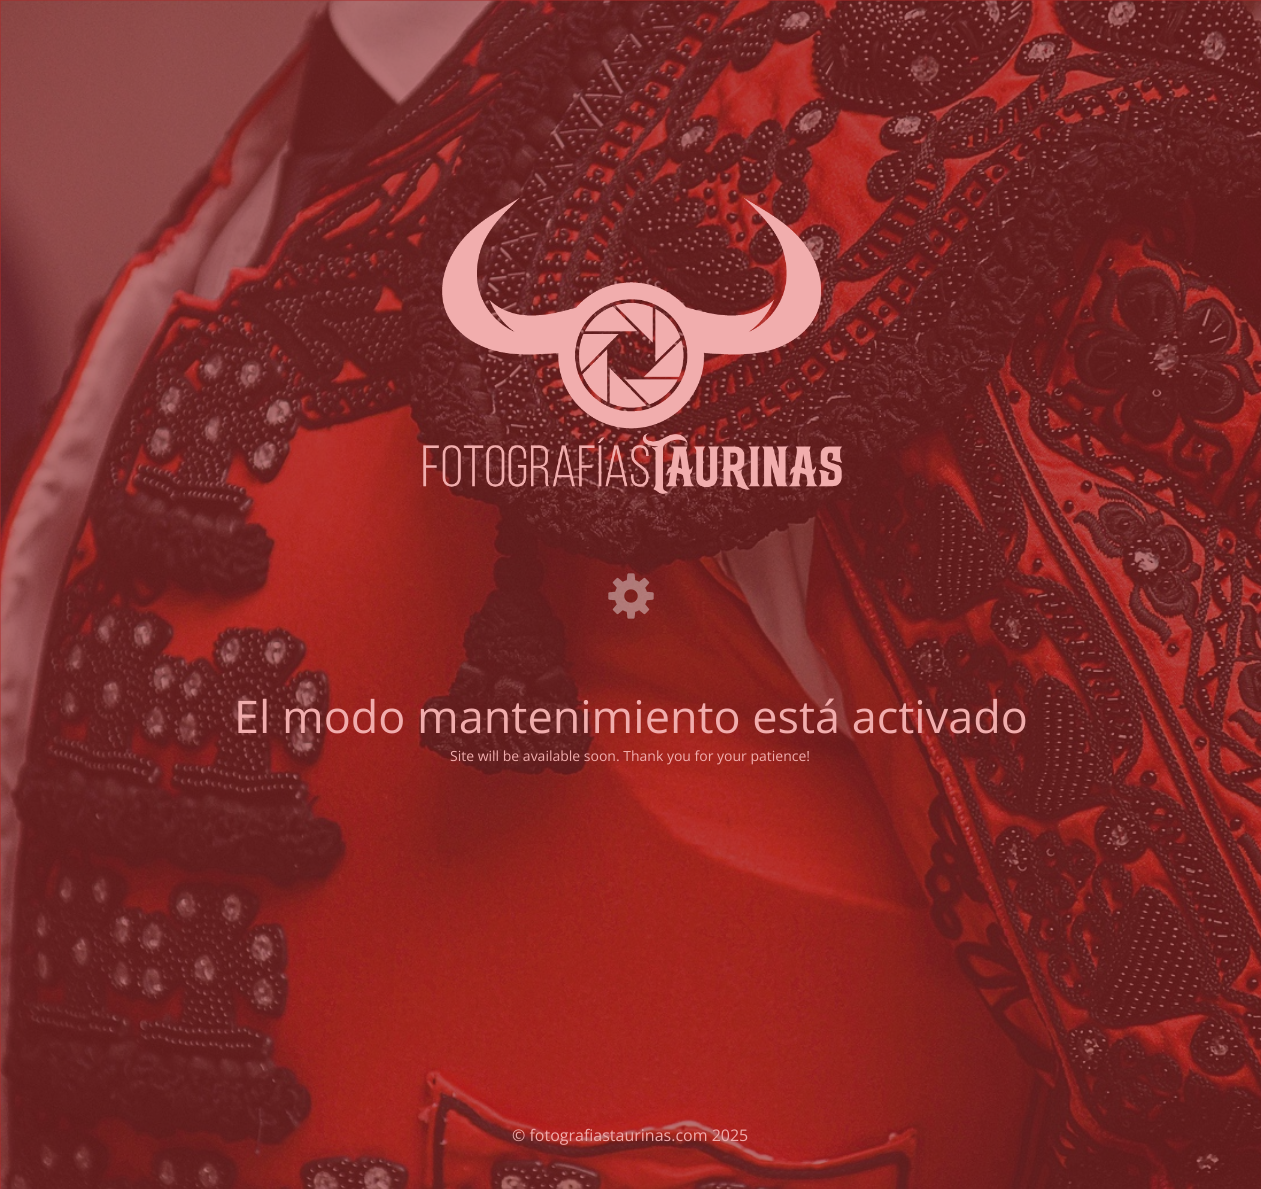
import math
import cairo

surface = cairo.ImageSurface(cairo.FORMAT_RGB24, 1261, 1189)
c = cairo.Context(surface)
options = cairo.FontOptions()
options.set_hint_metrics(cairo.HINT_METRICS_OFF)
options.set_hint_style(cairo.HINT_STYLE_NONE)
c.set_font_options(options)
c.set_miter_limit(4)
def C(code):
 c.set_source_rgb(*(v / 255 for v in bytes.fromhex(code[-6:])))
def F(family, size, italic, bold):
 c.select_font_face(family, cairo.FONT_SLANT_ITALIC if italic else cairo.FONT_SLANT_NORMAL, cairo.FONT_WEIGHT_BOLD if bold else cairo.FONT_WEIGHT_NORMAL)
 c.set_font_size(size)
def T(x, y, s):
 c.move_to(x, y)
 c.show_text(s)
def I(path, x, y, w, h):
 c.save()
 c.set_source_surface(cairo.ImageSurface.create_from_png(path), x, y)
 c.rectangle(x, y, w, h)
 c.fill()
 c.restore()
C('ac2b2b')
c.paint()
I('1.png',0,0,1261,1189)
I('2.png',608,573,46,46)
I('3.png',423,198,420,296)
F('Open Sans',45,0,0)
C('f1adad')
T(234,733,'El modo mantenimiento está activado')
F('Open Sans',14,0,0)
T(450,761,'Site will be available soon. Thank you for your patience!')
F('Open Sans',16,0,0)
T(512,1141,'© fotografiastaurinas.com 2025')
surface.write_to_png('o.png')
